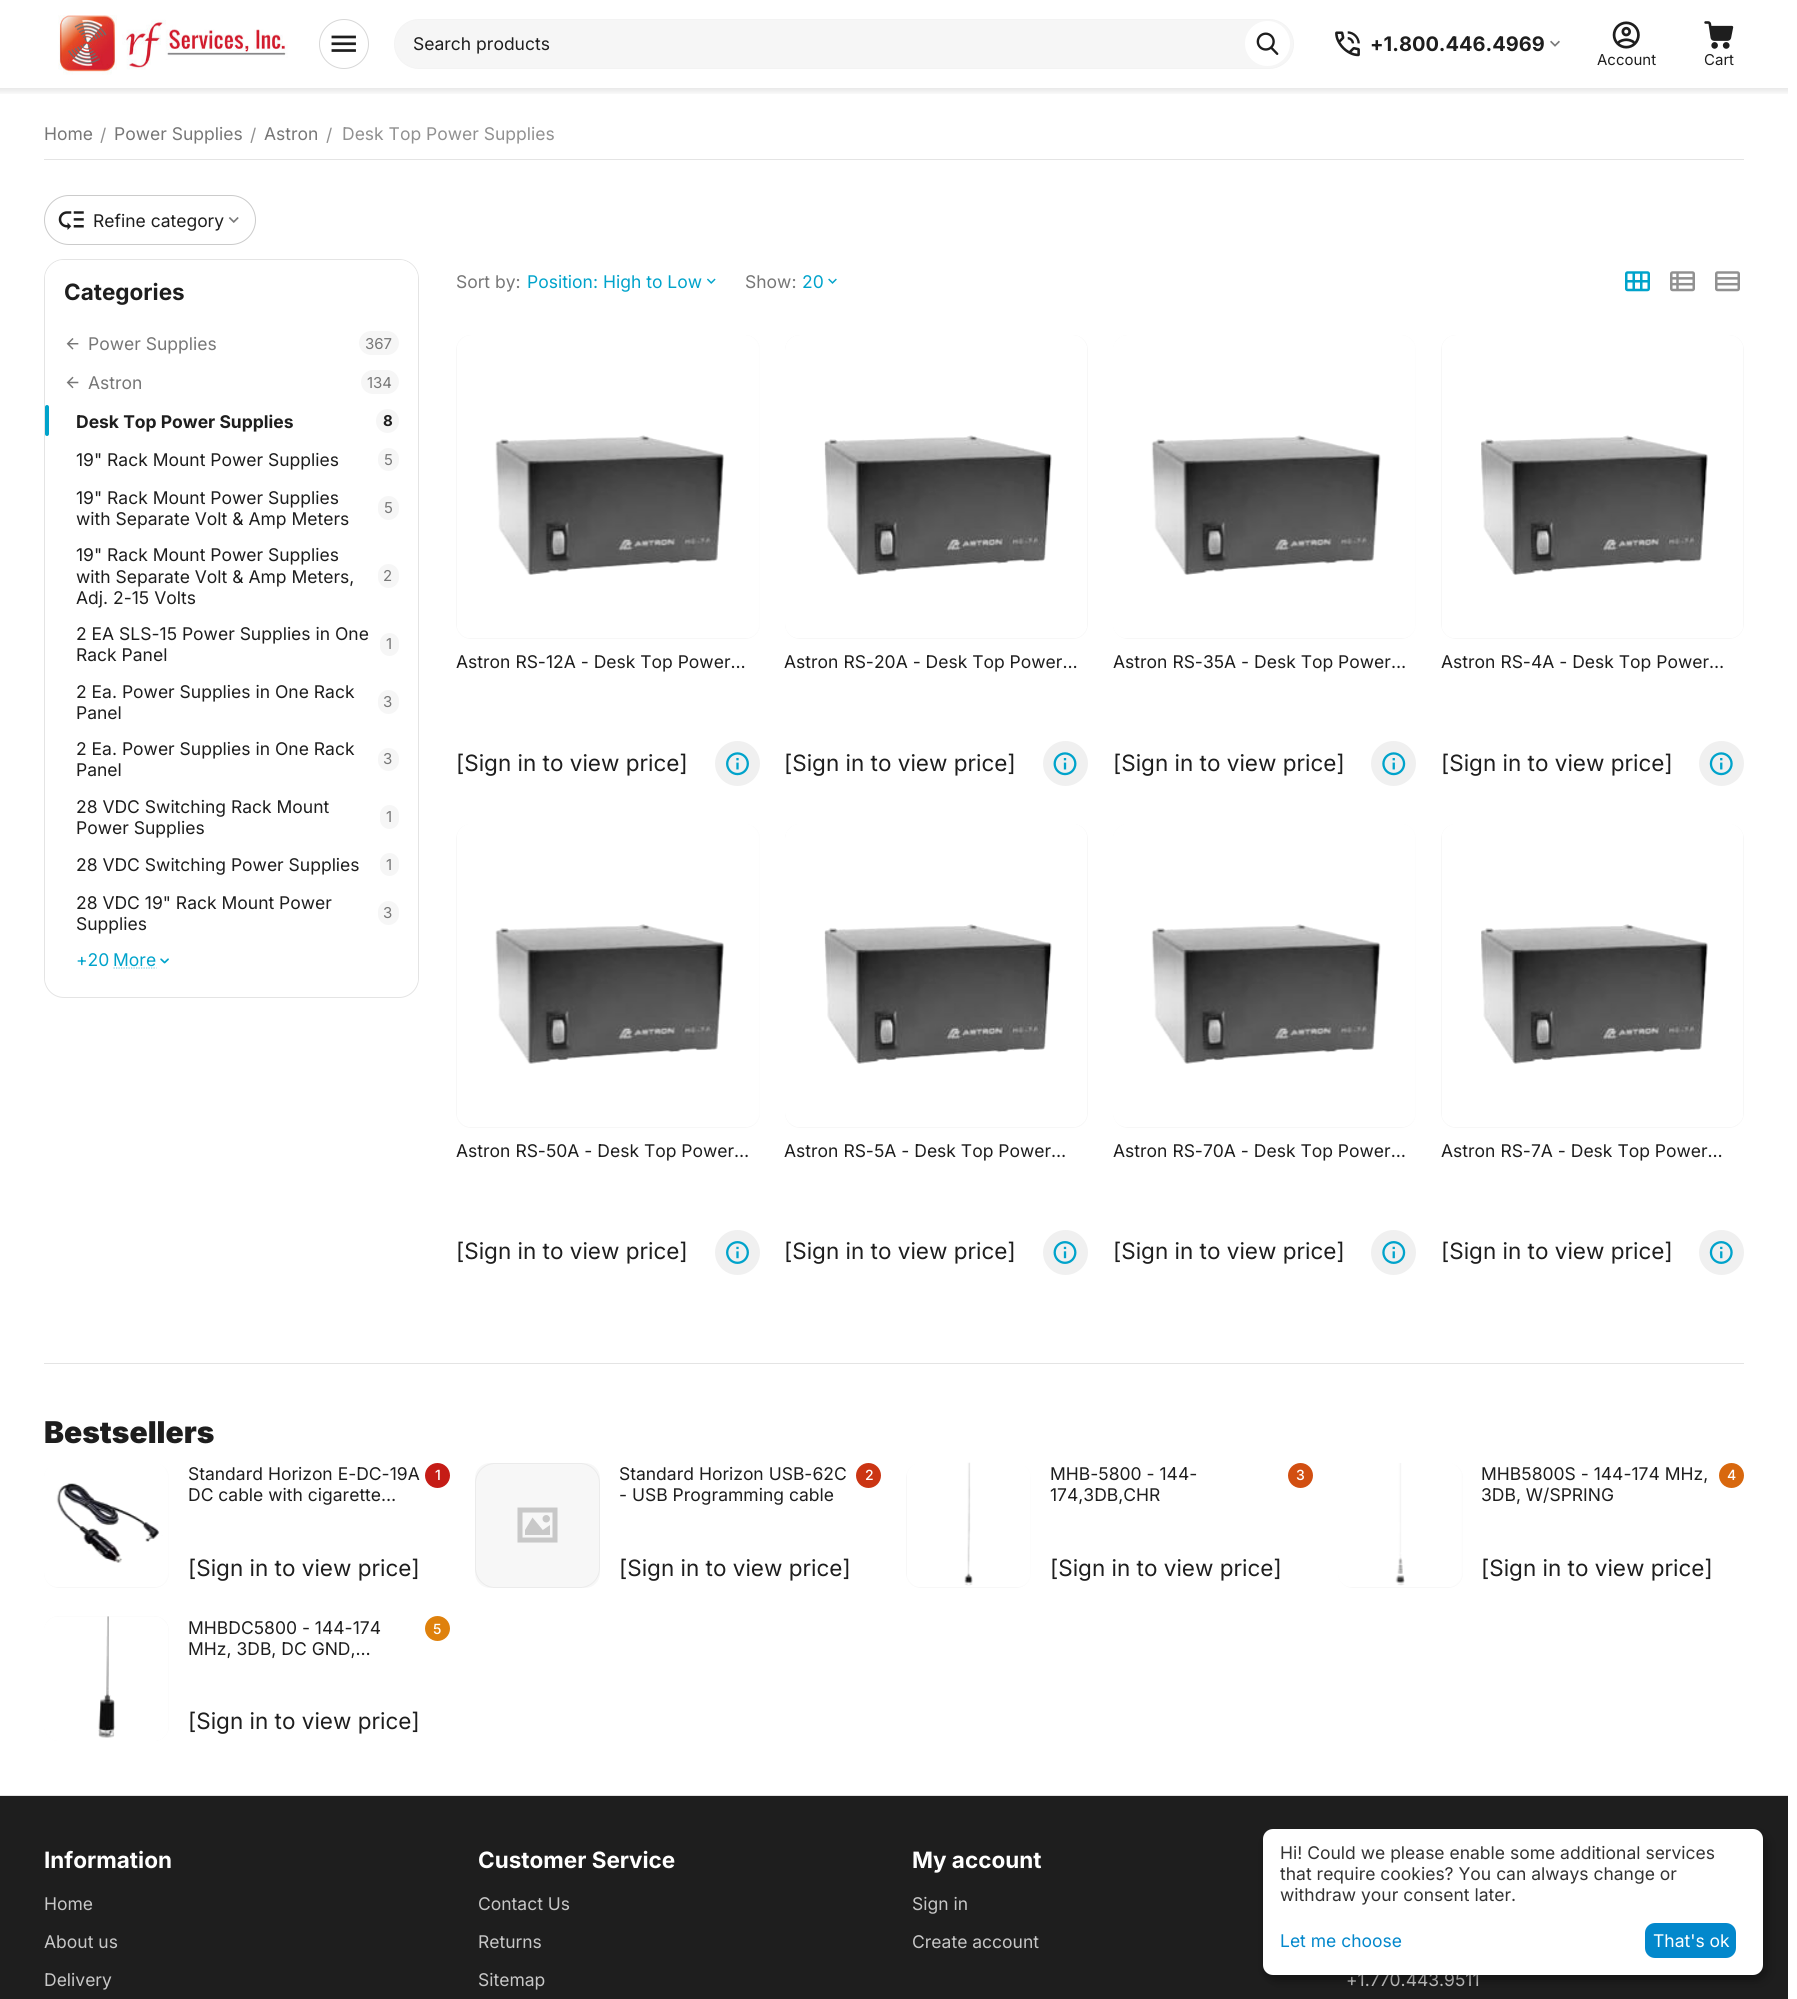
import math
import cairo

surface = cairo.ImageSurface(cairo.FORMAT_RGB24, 1797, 1999)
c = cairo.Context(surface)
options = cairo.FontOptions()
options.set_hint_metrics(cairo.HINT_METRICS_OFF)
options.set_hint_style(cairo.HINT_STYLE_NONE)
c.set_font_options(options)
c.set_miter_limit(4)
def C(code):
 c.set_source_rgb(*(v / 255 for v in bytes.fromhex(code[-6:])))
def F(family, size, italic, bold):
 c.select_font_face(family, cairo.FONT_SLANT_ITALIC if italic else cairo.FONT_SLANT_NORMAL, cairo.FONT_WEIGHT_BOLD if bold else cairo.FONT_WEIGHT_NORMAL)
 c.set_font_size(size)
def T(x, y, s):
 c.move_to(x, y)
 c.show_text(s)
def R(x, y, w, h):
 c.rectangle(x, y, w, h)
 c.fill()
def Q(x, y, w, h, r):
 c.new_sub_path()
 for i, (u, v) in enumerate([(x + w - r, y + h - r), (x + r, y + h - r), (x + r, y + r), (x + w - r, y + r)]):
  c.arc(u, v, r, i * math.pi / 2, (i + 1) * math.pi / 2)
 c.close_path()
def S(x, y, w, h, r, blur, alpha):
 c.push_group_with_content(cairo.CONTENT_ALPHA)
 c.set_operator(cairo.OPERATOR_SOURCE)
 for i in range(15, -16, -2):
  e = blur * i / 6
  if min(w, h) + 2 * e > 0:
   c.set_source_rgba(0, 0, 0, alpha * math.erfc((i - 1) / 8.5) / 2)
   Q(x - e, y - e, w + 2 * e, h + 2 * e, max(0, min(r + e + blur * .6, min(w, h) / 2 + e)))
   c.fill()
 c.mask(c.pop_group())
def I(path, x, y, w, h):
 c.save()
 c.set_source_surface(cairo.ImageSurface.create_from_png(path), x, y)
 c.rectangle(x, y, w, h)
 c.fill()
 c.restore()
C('ffffff')
c.paint()
I('1.png',58,15,230,60)
c.arc(344,44,24.5,0,2 * math.pi)
C('d7d7d7')
c.set_line_width(1)
c.stroke()
I('2.png',331,35,25,17)
C('f6f6f6')
Q(394.5,19.5,899,49,24.5)
c.fill_preserve()
C('f3f3f3')
c.stroke()
F('Inter',17.5,0,0)
C('1e1e1e')
T(413,50,'Search products')
C('ffffff')
c.new_path()
c.arc(1267.5,43.5,22.5,0,2 * math.pi)
c.fill()
I('3.png',1256,32,23,23)
I('4.png',1335,31,25,26)
F('Inter',20,0,1)
C('1e1e1e')
T(1370,51,'+1.800.446.4969')
I('5.png',1550,40,10,7)
I('6.png',1612,21,28,28)
F('Inter',15,0,0)
T(1597,65,'Account')
I('7.png',1704,21,30,28)
T(1704,65,'Cart')
gradient = cairo.LinearGradient(894,87,894,96)
gradient.add_color_stop_rgba(0,0,0,0,.1)
gradient.add_color_stop_rgba(1,0,0,0,0)
c.set_source(gradient)
R(0,88,1788,6)
C('e4e4e4')
R(44,159,1700,1)
F('Inter',17.5,0,0)
C('777777')
T(44,140,'Home')
C('919191')
T(100,141,'/')
C('777777')
T(114,140,'Power Supplies')
C('919191')
T(250,141,'/')
C('777777')
T(264,140,'Astron')
C('919191')
T(326,141,'/')
T(342,140,'Desk Top Power Supplies')
Q(44.5,195.5,211,49,24.5)
C('cbcbcb')
c.stroke()
I('8.png',58,211,26,19)
C('1e1e1e')
T(93,227,'Refine category')
I('9.png',228,217,11,6)
Q(44.5,259.5,374,738,19.5)
C('e4e4e4')
c.stroke()
C('ffffff')
c.new_path()
c.move_to(64,260)
c.line_to(399,260)
c.curve_to(409.5,260,418,268.5,418,279)
c.line_to(418,305)
c.line_to(45,305)
c.line_to(45,279)
c.curve_to(45,268.5,53.5,260,64,260)
c.close_path()
c.fill()
F('Inter',22.5,0,1)
C('1e1e1e')
T(64,300,'Сategories')
C('ffffff')
c.new_path()
c.move_to(45,305)
c.line_to(418,305)
c.line_to(418,977)
c.curve_to(418,987.5,409.5,996,399,996)
c.line_to(64,996)
c.curve_to(53.5,996,45,987.5,45,977)
c.close_path()
c.fill()
I('10.png',66,338,13,12)
F('Inter',17.5,0,0)
C('777777')
T(88,350,'Power Supplies')
C('f6f6f6')
Q(359,331,40,24,12)
c.fill()
F('Inter',15,0,0)
C('777777')
T(365,349,'367')
I('11.png',66,376,13,13)
F('Inter',17.5,0,0)
T(88,389,'Astron')
C('f6f6f6')
Q(361,370,38,24,12)
c.fill()
F('Inter',15,0,0)
C('777777')
T(367,388,'134')
C('00a3cb')
Q(45,405,4,31,2)
c.fill()
F('Inter',17.5,0,1)
C('1e1e1e')
T(76,428,'Desk Top Power Supplies')
C('f6f6f6')
Q(376,409,23,24,11.5)
c.fill()
F('Inter',15,0,1)
C('1e1e1e')
T(383,426,'8')
F('Inter',17.5,0,0)
T(76,466,'19" Rack Mount Power Supplies')
C('f6f6f6')
Q(378,448,21,23,10.5)
c.fill()
F('Inter',15,0,0)
C('777777')
T(384,465,'5')
F('Inter',17.5,0,0)
C('1e1e1e')
T(76,504,'19" Rack Mount Power Supplies')
C('f6f6f6')
Q(378,496,21,24,10.5)
c.fill()
F('Inter',15,0,0)
C('777777')
T(384,513,'5')
F('Inter',17.5,0,0)
C('1e1e1e')
T(76,525,'with Separate Volt & Amp Meters')
T(76,561,'19" Rack Mount Power Supplies')
T(76,583,'with Separate Volt & Amp Meters,')
C('f6f6f6')
Q(378,564,21,24,10.5)
c.fill()
F('Inter',15,0,0)
C('777777')
T(383,581,'2')
F('Inter',17.5,0,0)
C('1e1e1e')
T(76,604,'Adj. 2-15 Volts')
T(76,640,'2 EA SLS-15 Power Supplies in One')
C('f6f6f6')
Q(380,633,19,23,9.5)
c.fill()
F('Inter',15,0,0)
C('777777')
T(386,649,'1')
F('Inter',17.5,0,0)
C('1e1e1e')
T(76,661,'Rack Panel')
T(76,698,'2 Ea. Power Supplies in One Rack')
C('f6f6f6')
Q(378,690,21,24,10.5)
c.fill()
F('Inter',15,0,0)
C('777777')
T(383,707,'3')
F('Inter',17.5,0,0)
C('1e1e1e')
T(76,719,'Panel')
T(76,755,'2 Ea. Power Supplies in One Rack')
C('f6f6f6')
Q(378,748,21,23,10.5)
c.fill()
F('Inter',15,0,0)
C('777777')
T(383,764,'3')
F('Inter',17.5,0,0)
C('1e1e1e')
T(76,776,'Panel')
T(76,813,'28 VDC Switching Rack Mount')
C('f6f6f6')
Q(380,805,19,24,9.5)
c.fill()
F('Inter',15,0,0)
C('777777')
T(386,822,'1')
F('Inter',17.5,0,0)
C('1e1e1e')
T(76,834,'Power Supplies')
T(76,871,'28 VDC Switching Power Supplies')
C('f6f6f6')
Q(380,853,19,23,9.5)
c.fill()
F('Inter',15,0,0)
C('777777')
T(386,870,'1')
F('Inter',17.5,0,0)
C('1e1e1e')
T(76,909,'28 VDC 19" Rack Mount Power')
C('f6f6f6')
Q(378,901,21,24,10.5)
c.fill()
F('Inter',15,0,0)
C('777777')
T(383,918,'3')
F('Inter',17.5,0,0)
C('1e1e1e')
T(76,930,'Supplies')
C('00a3cb')
T(76,966,'+20')
T(113,966,'More')
c.new_path()
c.move_to(113.5,968)
c.line_to(156.5,968)
C('80d1e5')
c.set_line_width(1.2)
c.set_dash([1.25,1.25])
c.stroke()
I('12.png',160,958,9,6)
C('777777')
T(456,288,'Sort by:')
C('00a3cb')
T(527,288,'Position: High to Low')
I('13.png',707,278,9,6)
C('777777')
T(745,288,'Show:')
C('00a3cb')
T(802,288,'20')
I('14.png',828,278,9,6)
I('15.png',1625,271,25,21)
I('16.png',1670,271,25,21)
I('17.png',1715,271,25,21)
C('f7f7f7')
Q(456,335,304,304,15)
c.fill()
I('18.png',457,335,303,303)
C('1e1e1e')
T(456,668,'Astron RS-12A - Desk Top Power…')
F('Inter',22.5,0,0)
T(456,771,'[Sign in to view price]')
C('f0f0f0')
c.new_path()
c.arc(737.5,763.5,22.5,0,2 * math.pi)
c.fill()
I('19.png',726,752,23,24)
C('f7f7f7')
Q(785,335,303,304,15)
c.fill()
I('20.png',785,335,302,303)
F('Inter',17.5,0,0)
C('1e1e1e')
T(784,668,'Astron RS-20A - Desk Top Power…')
F('Inter',22.5,0,0)
T(784,771,'[Sign in to view price]')
C('f0f0f0')
c.new_path()
c.arc(1065.5,763.5,22.5,0,2 * math.pi)
c.fill()
I('21.png',1053,752,24,24)
C('f7f7f7')
Q(1113,335,303,304,15)
c.fill()
I('22.png',1113,335,303,303)
F('Inter',17.5,0,0)
C('1e1e1e')
T(1113,668,'Astron RS-35A - Desk Top Power…')
F('Inter',22.5,0,0)
T(1113,771,'[Sign in to view price]')
C('f0f0f0')
c.new_path()
c.arc(1393.5,763.5,22.5,0,2 * math.pi)
c.fill()
I('23.png',1382,752,24,24)
C('f7f7f7')
Q(1441,335,303,304,15)
c.fill()
I('24.png',1442,335,301,303)
F('Inter',17.5,0,0)
C('1e1e1e')
T(1441,668,'Astron RS-4A - Desk Top Power…')
F('Inter',22.5,0,0)
T(1441,771,'[Sign in to view price]')
C('f0f0f0')
c.new_path()
c.arc(1721.5,763.5,22.5,0,2 * math.pi)
c.fill()
I('25.png',1709,752,24,24)
C('f7f7f7')
Q(456,824,304,304,15)
c.fill()
I('26.png',457,824,303,303)
F('Inter',17.5,0,0)
C('1e1e1e')
T(456,1157,'Astron RS-50A - Desk Top Power…')
F('Inter',22.5,0,0)
T(456,1259,'[Sign in to view price]')
C('f0f0f0')
c.new_path()
c.arc(737.5,1252.5,22.5,0,2 * math.pi)
c.fill()
I('27.png',726,1241,23,23)
C('f7f7f7')
Q(785,824,303,304,15)
c.fill()
I('28.png',785,824,302,303)
F('Inter',17.5,0,0)
C('1e1e1e')
T(784,1157,'Astron RS-5A - Desk Top Power…')
F('Inter',22.5,0,0)
T(784,1259,'[Sign in to view price]')
C('f0f0f0')
c.new_path()
c.arc(1065.5,1252.5,22.5,0,2 * math.pi)
c.fill()
I('29.png',1053,1241,24,23)
C('f7f7f7')
Q(1113,824,303,304,15)
c.fill()
I('30.png',1113,824,303,303)
F('Inter',17.5,0,0)
C('1e1e1e')
T(1113,1157,'Astron RS-70A - Desk Top Power…')
F('Inter',22.5,0,0)
T(1113,1259,'[Sign in to view price]')
C('f0f0f0')
c.new_path()
c.arc(1393.5,1252.5,22.5,0,2 * math.pi)
c.fill()
I('31.png',1382,1241,24,23)
C('f7f7f7')
Q(1441,824,303,304,15)
c.fill()
I('32.png',1442,824,301,303)
F('Inter',17.5,0,0)
C('1e1e1e')
T(1441,1157,'Astron RS-7A - Desk Top Power…')
F('Inter',22.5,0,0)
T(1441,1259,'[Sign in to view price]')
C('f0f0f0')
c.new_path()
c.arc(1721.5,1252.5,22.5,0,2 * math.pi)
c.fill()
I('33.png',1709,1241,24,23)
C('e4e4e4')
R(44,1363,1700,1)
F('Inter Black',30,0,0)
C('1e1e1e')
T(44,1443,'Bestsellers')
C('f7f7f7')
Q(44,1463,125,125,15)
c.fill()
I('34.png',44,1463,125,124)
F('Inter',17.5,0,0)
C('1e1e1e')
T(188,1480,'Standard Horizon E-DC-19A')
T(188,1501,'DC cable with cigarette…')
F('Inter',22.5,0,0)
T(188,1576,'[Sign in to view price]')
C('c51c16')
c.new_path()
c.arc(437.5,1475.5,12.5,0,2 * math.pi)
c.fill()
F('Inter Medium',14,0,0)
C('ffffff')
T(435,1480,'1')
C('f7f7f7')
Q(475,1463,125,125,15)
c.fill()
Q(475.5,1463.5,124,124,19.5)
C('ebebeb')
c.set_line_width(1)
c.set_dash([])
c.stroke()
I('35.png',517,1507,41,36)
F('Inter',17.5,0,0)
C('1e1e1e')
T(619,1480,'Standard Horizon USB-62C')
T(619,1501,'- USB Programming cable')
F('Inter',22.5,0,0)
T(619,1576,'[Sign in to view price]')
C('cb3513')
c.new_path()
c.arc(868.5,1475.5,12.5,0,2 * math.pi)
c.fill()
F('Inter Medium',14,0,0)
C('ffffff')
T(865,1480,'2')
C('f7f7f7')
Q(906,1463,125,125,15)
c.fill()
I('36.png',907,1462,124,125)
F('Inter',17.5,0,0)
C('1e1e1e')
T(1050,1480,'MHB-5800 - 144-')
T(1050,1501,'174,3DB,CHR')
F('Inter',22.5,0,0)
T(1050,1576,'[Sign in to view price]')
C('d24f11')
c.new_path()
c.arc(1300.5,1475.5,12.5,0,2 * math.pi)
c.fill()
F('Inter Medium',14,0,0)
C('ffffff')
T(1296,1480,'3')
C('f7f7f7')
Q(1338,1463,125,125,15)
c.fill()
I('37.png',1338,1463,125,124)
F('Inter',17.5,0,0)
C('1e1e1e')
T(1481,1480,'MHB5800S - 144-174 MHz,')
T(1481,1501,'3DB, W/SPRING')
F('Inter',22.5,0,0)
T(1481,1576,'[Sign in to view price]')
C('d8680e')
c.new_path()
c.arc(1731.5,1475.5,12.5,0,2 * math.pi)
c.fill()
F('Inter Medium',14,0,0)
C('ffffff')
T(1727,1480,'4')
C('f7f7f7')
Q(44,1616,125,125,15)
c.fill()
I('38.png',44,1616,125,125)
F('Inter',17.5,0,0)
C('1e1e1e')
T(188,1634,'MHBDC5800 - 144-174')
T(188,1655,'MHz, 3DB, DC GND,…')
F('Inter',22.5,0,0)
T(188,1729,'[Sign in to view price]')
C('df810c')
c.new_path()
c.arc(437.5,1628.5,12.5,0,2 * math.pi)
c.fill()
F('Inter Medium',14,0,0)
C('ffffff')
T(433,1634,'5')
C('1e1e1e')
R(0,1796,1788,203)
C('e4e4e4')
R(0,1795,1788,1)
F('Inter',22.5,0,1)
C('ffffff')
T(44,1868,'Information')
F('Inter',17.5,0,0)
C('c7c7c7')
T(44,1910,'Home')
T(44,1948,'About us')
T(44,1986,'Delivery')
F('Inter',22.5,0,1)
C('ffffff')
T(478,1868,'Customer Service')
F('Inter',17.5,0,0)
C('c7c7c7')
T(478,1910,'Contact Us')
T(478,1948,'Returns')
T(478,1986,'Sitemap')
F('Inter',22.5,0,1)
C('ffffff')
T(912,1868,'My account')
F('Inter',17.5,0,0)
C('c7c7c7')
T(912,1910,'Sign in')
T(912,1948,'Create account')
T(1346,1986,'+1.770.443.9511')
C('000000')
S(1269,1835,500,146,10,6,.19)
S(1263,1834,500,146,10,4,.2)
C('ffffff')
Q(1263,1829,500,146,10)
c.fill()
C('333333')
T(1280,1859,'Hi! Could we please enable some additional services')
T(1280,1880,'that require cookies? You can always change or')
T(1280,1901,'withdraw your consent later.')
C('0388cc')
T(1280,1947,'Let me choose')
Q(1645,1923,91,35,10)
c.fill()
C('ffffff')
T(1653,1947,'That\'s ok')
surface.write_to_png('o.png')
